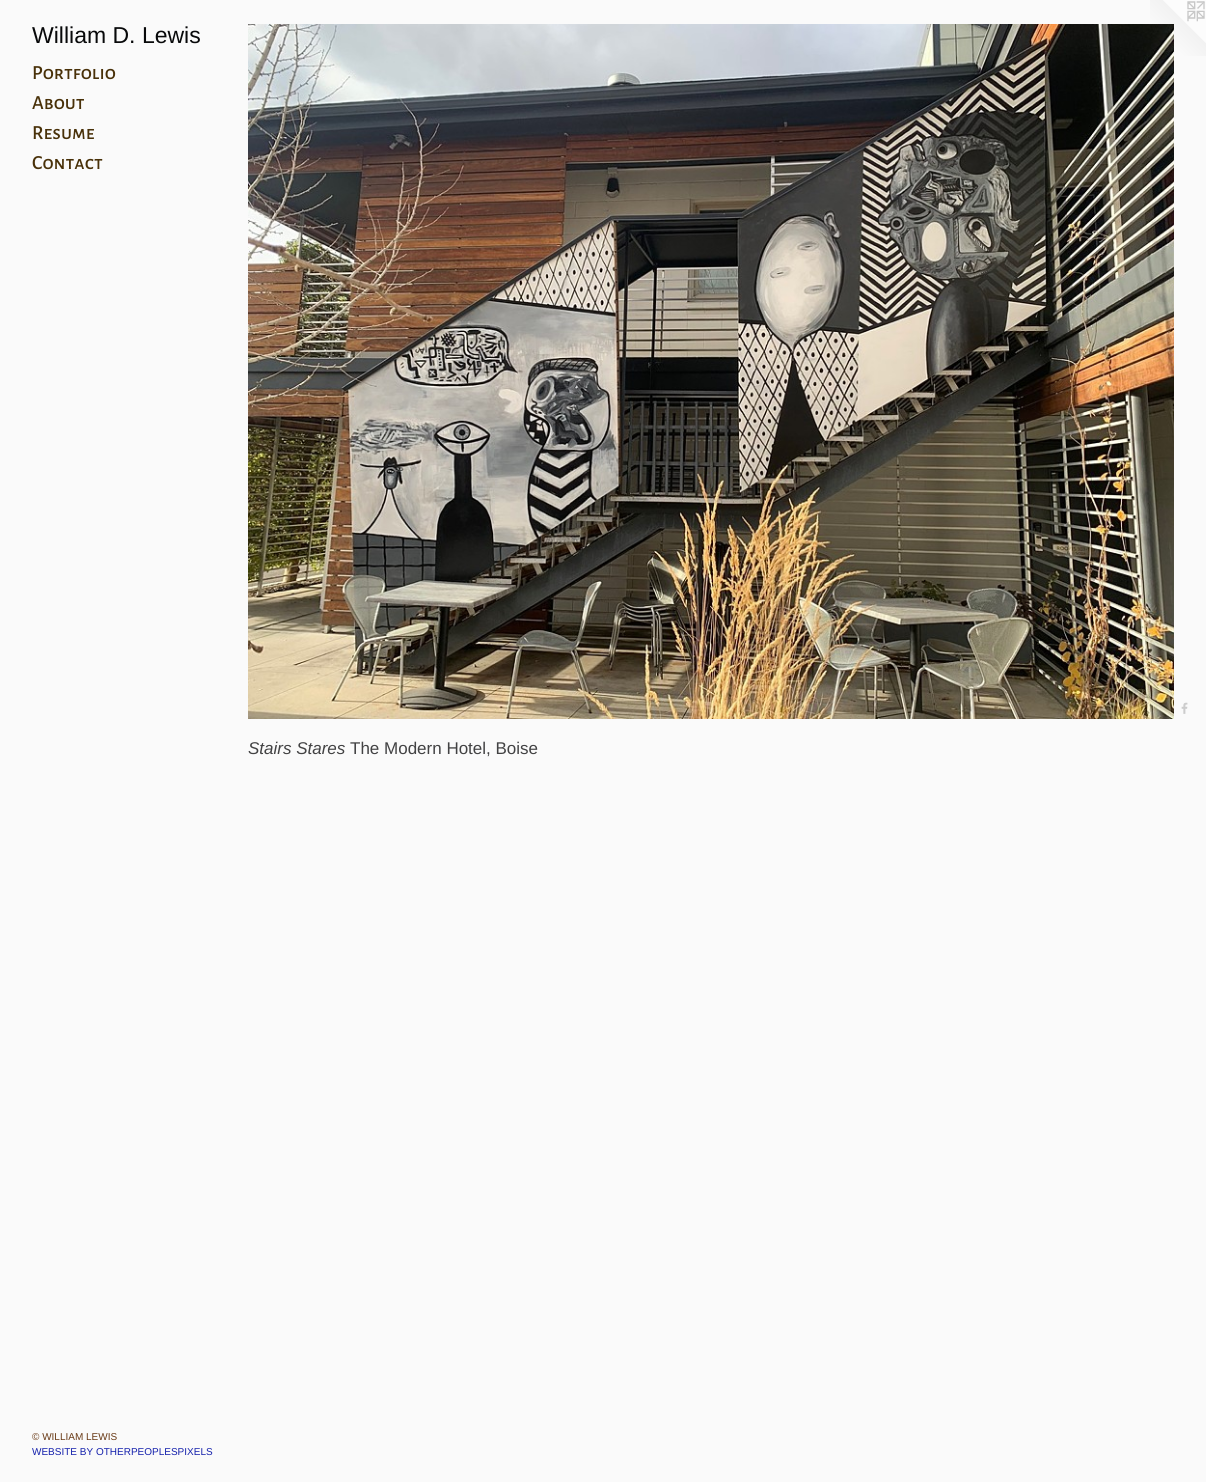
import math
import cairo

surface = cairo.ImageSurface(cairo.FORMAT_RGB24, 1206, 1482)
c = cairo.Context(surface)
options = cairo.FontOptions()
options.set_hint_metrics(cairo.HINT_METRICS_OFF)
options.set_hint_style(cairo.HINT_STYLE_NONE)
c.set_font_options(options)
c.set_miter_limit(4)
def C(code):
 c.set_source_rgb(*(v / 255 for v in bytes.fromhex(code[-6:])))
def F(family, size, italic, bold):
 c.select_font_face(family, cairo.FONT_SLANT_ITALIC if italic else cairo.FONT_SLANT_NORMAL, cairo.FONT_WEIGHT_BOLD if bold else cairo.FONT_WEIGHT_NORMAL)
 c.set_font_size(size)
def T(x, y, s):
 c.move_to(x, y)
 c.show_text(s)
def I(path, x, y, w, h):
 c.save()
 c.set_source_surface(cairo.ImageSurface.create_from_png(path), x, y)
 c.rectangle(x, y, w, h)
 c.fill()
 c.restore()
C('fafafa')
c.paint()
F('Liberation Sans',23,0,0)
C('08090a')
T(32,43,'William D. Lewis')
F('Alegreya Sans SC Medium',20,0,0)
C('493109')
T(32,79,'Portfolio')
T(32,109,'About')
T(32,139,'Resume')
T(32,169,'Contact')
F('Liberation Sans',10,0,0)
C('693a16')
T(32,1440,'© WILLIAM LEWIS')
C('1521ac')
T(32,1455,'WEBSITE BY OTHERPEOPLESPIXELS')
I('1.png',1150,0,56,56)
I('2.png',248,24,926,695)
I('3.png',1181,702,7,12)
F('Liberation Sans',17,1,0)
C('424243')
T(248,754,'Stairs Stares')
F('Liberation Sans',17,0,0)
T(350,754,'The Modern Hotel, Boise')
surface.write_to_png('o.png')
